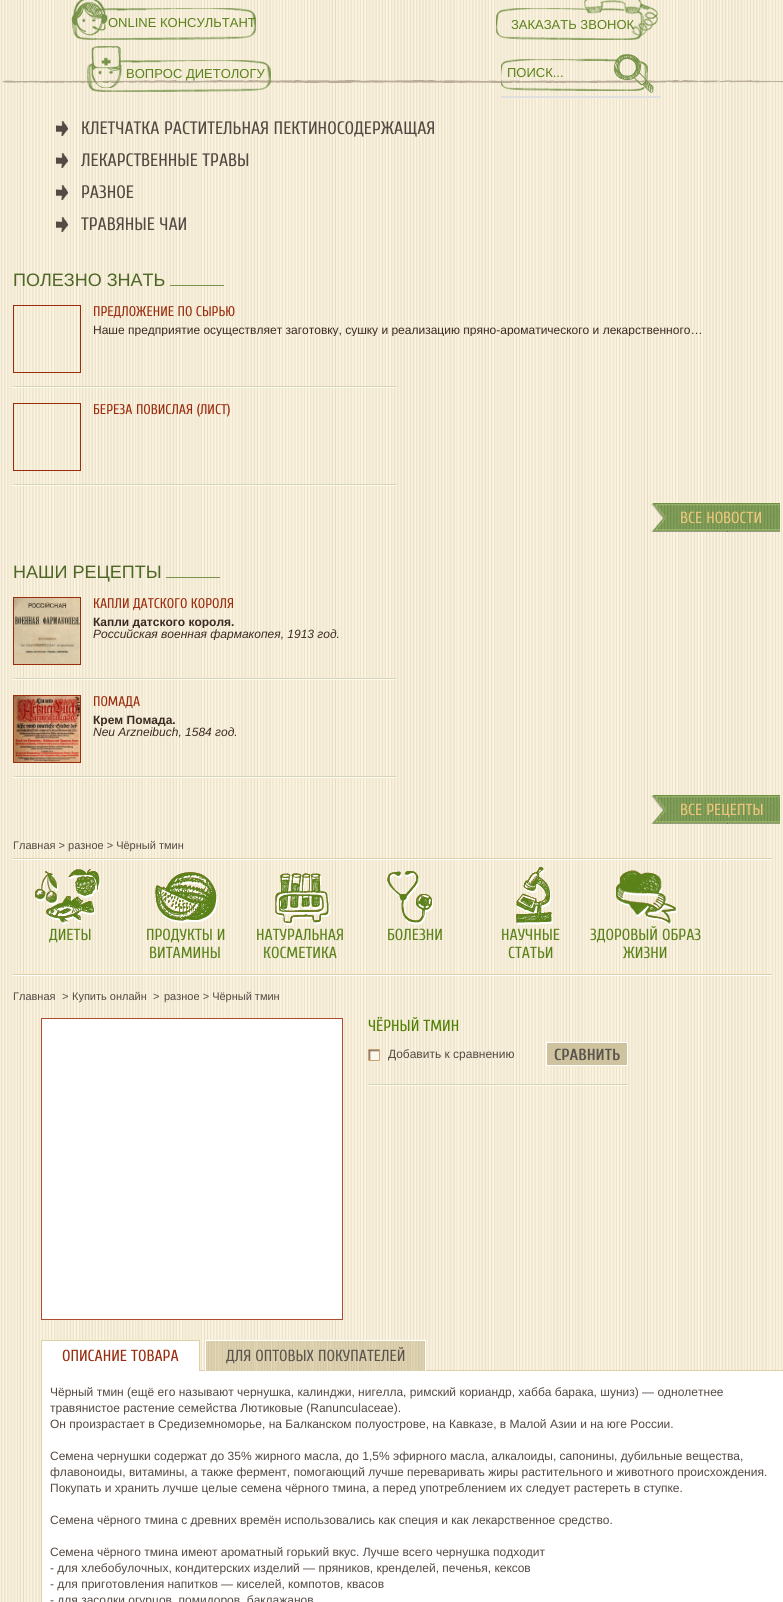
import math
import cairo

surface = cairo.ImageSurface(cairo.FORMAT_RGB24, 783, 1602)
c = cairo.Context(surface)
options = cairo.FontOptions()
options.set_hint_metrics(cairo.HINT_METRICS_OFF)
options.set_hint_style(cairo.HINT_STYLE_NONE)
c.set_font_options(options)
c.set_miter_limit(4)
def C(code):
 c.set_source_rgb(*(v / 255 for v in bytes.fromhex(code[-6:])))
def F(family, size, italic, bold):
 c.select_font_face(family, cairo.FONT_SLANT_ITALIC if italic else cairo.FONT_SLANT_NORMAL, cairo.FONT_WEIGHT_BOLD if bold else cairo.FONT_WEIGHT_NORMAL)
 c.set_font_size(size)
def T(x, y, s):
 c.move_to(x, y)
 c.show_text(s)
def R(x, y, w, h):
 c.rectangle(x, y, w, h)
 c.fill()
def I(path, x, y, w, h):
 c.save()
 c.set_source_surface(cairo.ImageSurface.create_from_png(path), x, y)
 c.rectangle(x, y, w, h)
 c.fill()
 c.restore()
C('ffffff')
c.paint()
I('1.png',0,0,783,1602)
I('2.png',3,80,780,3)
I('3.png',71,0,185,40)
F('Liberation Sans',13,0,0)
C('5a8219')
T(108,27,'ONLINE КОНСУЛЬТАНТ')
I('4.png',496,0,163,40)
T(511,29,'ЗАКАЗАТЬ ЗВОНОК')
I('5.png',87,46,184,46)
T(126,78,'ВОПРОС ДИЕТОЛОГУ')
I('6.png',501,54,153,39)
T(507,77,'ПОИСК...')
C('dfdfdf')
R(501,96,160,2)
I('7.png',56,121,13,15)
F('Cuprum',18,0,0)
C('544842')
T(81,134,'КЛЕТЧАТКА РАСТИТЕЛЬНАЯ ПЕКТИНОСОДЕРЖАЩАЯ')
I('7.png',56,153,13,15)
T(81,166,'ЛЕКАРСТВЕННЫЕ ТРАВЫ')
I('7.png',56,185,13,15)
T(81,198,'РАЗНОЕ')
I('8.png',56,217,13,15)
T(81,230,'ТРАВЯНЫЕ ЧАИ')
F('Liberation Sans',18,0,0)
C('4d6624')
T(13,286,'ПОЛЕЗНО ЗНАТЬ')
I('9.png',170,285,54,1)
I('10.png',13,386,384,2)
c.rectangle(13.5,305.5,67,67)
C('9a2c0e')
c.set_line_width(1)
c.stroke()
F('Cuprum',14,0,0)
T(93,316,'ПРЕДЛОЖЕНИЕ ПО СЫРЬЮ')
c.save()
c.rectangle(93,324,687,12)
c.clip()
F('Liberation Sans',12,0,0)
C('3b2a22')
T(93,334,'Наше предприятие осуществляет заготовку, сушку и реализацию пряно-ароматического и лекарственного…')
c.restore()
I('10.png',13,484,384,2)
c.rectangle(13.5,403.5,67,67)
c.stroke()
T(93,414,'БЕРЕЗА ПОВИСЛАЯ (ЛИСТ)')
I('11.png',651,503,129,29)
F('Cuprum',16,0,0)
C('efc77c')
T(680,523,'ВСЕ НОВОСТИ')
F('Liberation Sans',18,0,0)
C('4d6624')
T(13,578,'НАШИ РЕЦЕПТЫ')
I('9.png',166,577,54,1)
I('10.png',13,678,384,2)
c.rectangle(13.5,597.5,67,67)
C('9a2c0e')
c.stroke()
I('12.png',14,598,66,66)
F('Cuprum',14,0,0)
T(93,608,'КАПЛИ ДАТСКОГО КОРОЛЯ')
c.save()
c.rectangle(93,616,687,12)
c.clip()
F('Liberation Sans',12,0,1)
C('3b2a22')
T(93,626,'Капли датского короля.')
c.restore()
c.save()
c.rectangle(93,628,687,12)
c.clip()
F('Liberation Sans',12,1,0)
C('3b2a22')
T(93,638,'Российская военная фармакопея, 1913 год.')
c.restore()
I('10.png',13,776,384,2)
c.rectangle(13.5,695.5,67,67)
c.stroke()
I('13.png',14,696,66,66)
T(93,706,'ПОМАДА')
c.save()
c.rectangle(93,714,687,12)
c.clip()
F('Liberation Sans',12,0,1)
C('3b2a22')
T(93,724,'Крем Помада.')
c.restore()
F('Liberation Sans',12,1,0)
C('3b2a22')
T(93,736,'Neu Arzneibuch, 1584 год.')
I('11.png',651,795,129,29)
F('Cuprum',16,0,0)
C('efc77c')
T(680,815,'ВСЕ РЕЦЕПТЫ')
F('Liberation Sans',11,0,0)
C('544842')
T(13,849,'Главная > разное > Чёрный тмин')
I('14.png',13,858,759,118)
I('15.png',35,869,66,56)
F('Cuprum',16,0,0)
C('5a8219')
T(49,940,'ДИЕТЫ')
I('16.png',155,872,63,51)
T(146,940,'ПРОДУКТЫ И')
T(149,958,'ВИТАМИНЫ')
I('17.png',275,873,55,52)
T(256,940,'НАТУРАЛЬНАЯ')
T(263,958,'КОСМЕТИКА')
I('18.png',387,871,46,54)
T(387,940,'БОЛЕЗНИ')
I('19.png',516,867,37,58)
T(501,940,'НАУЧНЫЕ')
T(508,958,'СТАТЬИ')
I('20.png',616,870,61,56)
T(590,940,'ЗДОРОВЫЙ ОБРАЗ')
T(623,958,'ЖИЗНИ')
F('Liberation Sans',11,0,0)
C('544842')
T(13,1000,'Главная')
T(62,1000,'>')
T(72,1000,'Купить онлайн')
T(153,1000,'>')
T(164,1000,'разное > Чёрный тмин')
C('ffffff')
c.rectangle(41.5,1018.5,301,301)
c.fill_preserve()
C('ab4c33')
c.stroke()
F('Cuprum',16,0,0)
C('508002')
T(368,1031,'ЧЁРНЫЙ ТМИН')
I('21.png',368,1084,260,2)
I('22.png',368,1049,13,12)
F('Liberation Sans',12,0,0)
C('544842')
T(388,1058,'Добавить к сравнению')
C('cfc39f')
c.rectangle(546.5,1042.5,81,23)
c.fill_preserve()
C('ffffff')
c.stroke()
F('Cuprum',16,0,1)
C('59554d')
T(554,1060,'СРАВНИТЬ')
C('ffffff')
c.rectangle(41.5,1370.5,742,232)
c.fill_preserve()
C('ded1aa')
c.stroke()
C('ffffff')
R(42,1341,157,30)
C('ded1aa')
R(41,1340,159,1)
R(199,1340,1,31)
R(41,1340,1,31)
F('Cuprum',16,0,0)
C('9a2c0e')
T(62,1361,'ОПИСАНИЕ ТОВАРА')
I('23.png',206,1341,219,30)
C('ffffff')
R(205,1340,221,1)
R(425,1340,1,31)
R(205,1340,1,31)
C('59554d')
T(226,1361,'ДЛЯ ОПТОВЫХ ПОКУПАТЕЛЕЙ')
F('Liberation Sans',12,0,0)
C('544842')
T(50,1396,'Чёрный тмин (ещё его называют чернушка, калинджи, нигелла, римский кориандр, хабба барака, шуниз) — однолетнее')
T(50,1412,'травянистое растение семейства Лютиковые (Ranunculaceae).')
T(50,1428,'Он произрастает в Средиземноморье, на Балканском полуострове, на Кавказе, в Малой Азии и на юге России.')
T(50,1460,'Семена чернушки содержат до 35% жирного масла, до 1,5% эфирного масла, алкалоиды, сапонины, дубильные вещества,')
T(50,1476,'флавоноиды, витамины, а также фермент, помогающий лучше переваривать жиры растительного и животного происхождения.')
T(50,1492,'Покупать и хранить лучше целые семена чёрного тмина, а перед употреблением их следует растереть в ступке.')
T(50,1524,'Семена чёрного тмина с древних времён использовались как специя и как лекарственное средство.')
T(50,1556,'Семена чёрного тмина имеют ароматный горький вкус. Лучше всего чернушка подходит')
T(50,1572,'- для хлебобулочных, кондитерских изделий — пряников, кренделей, печенья, кексов')
T(50,1588,'- для приготовления напитков — киселей, компотов, квасов')
T(50,1604,'- для засолки огурцов, помидоров, баклажанов')
surface.write_to_png('o.png')
